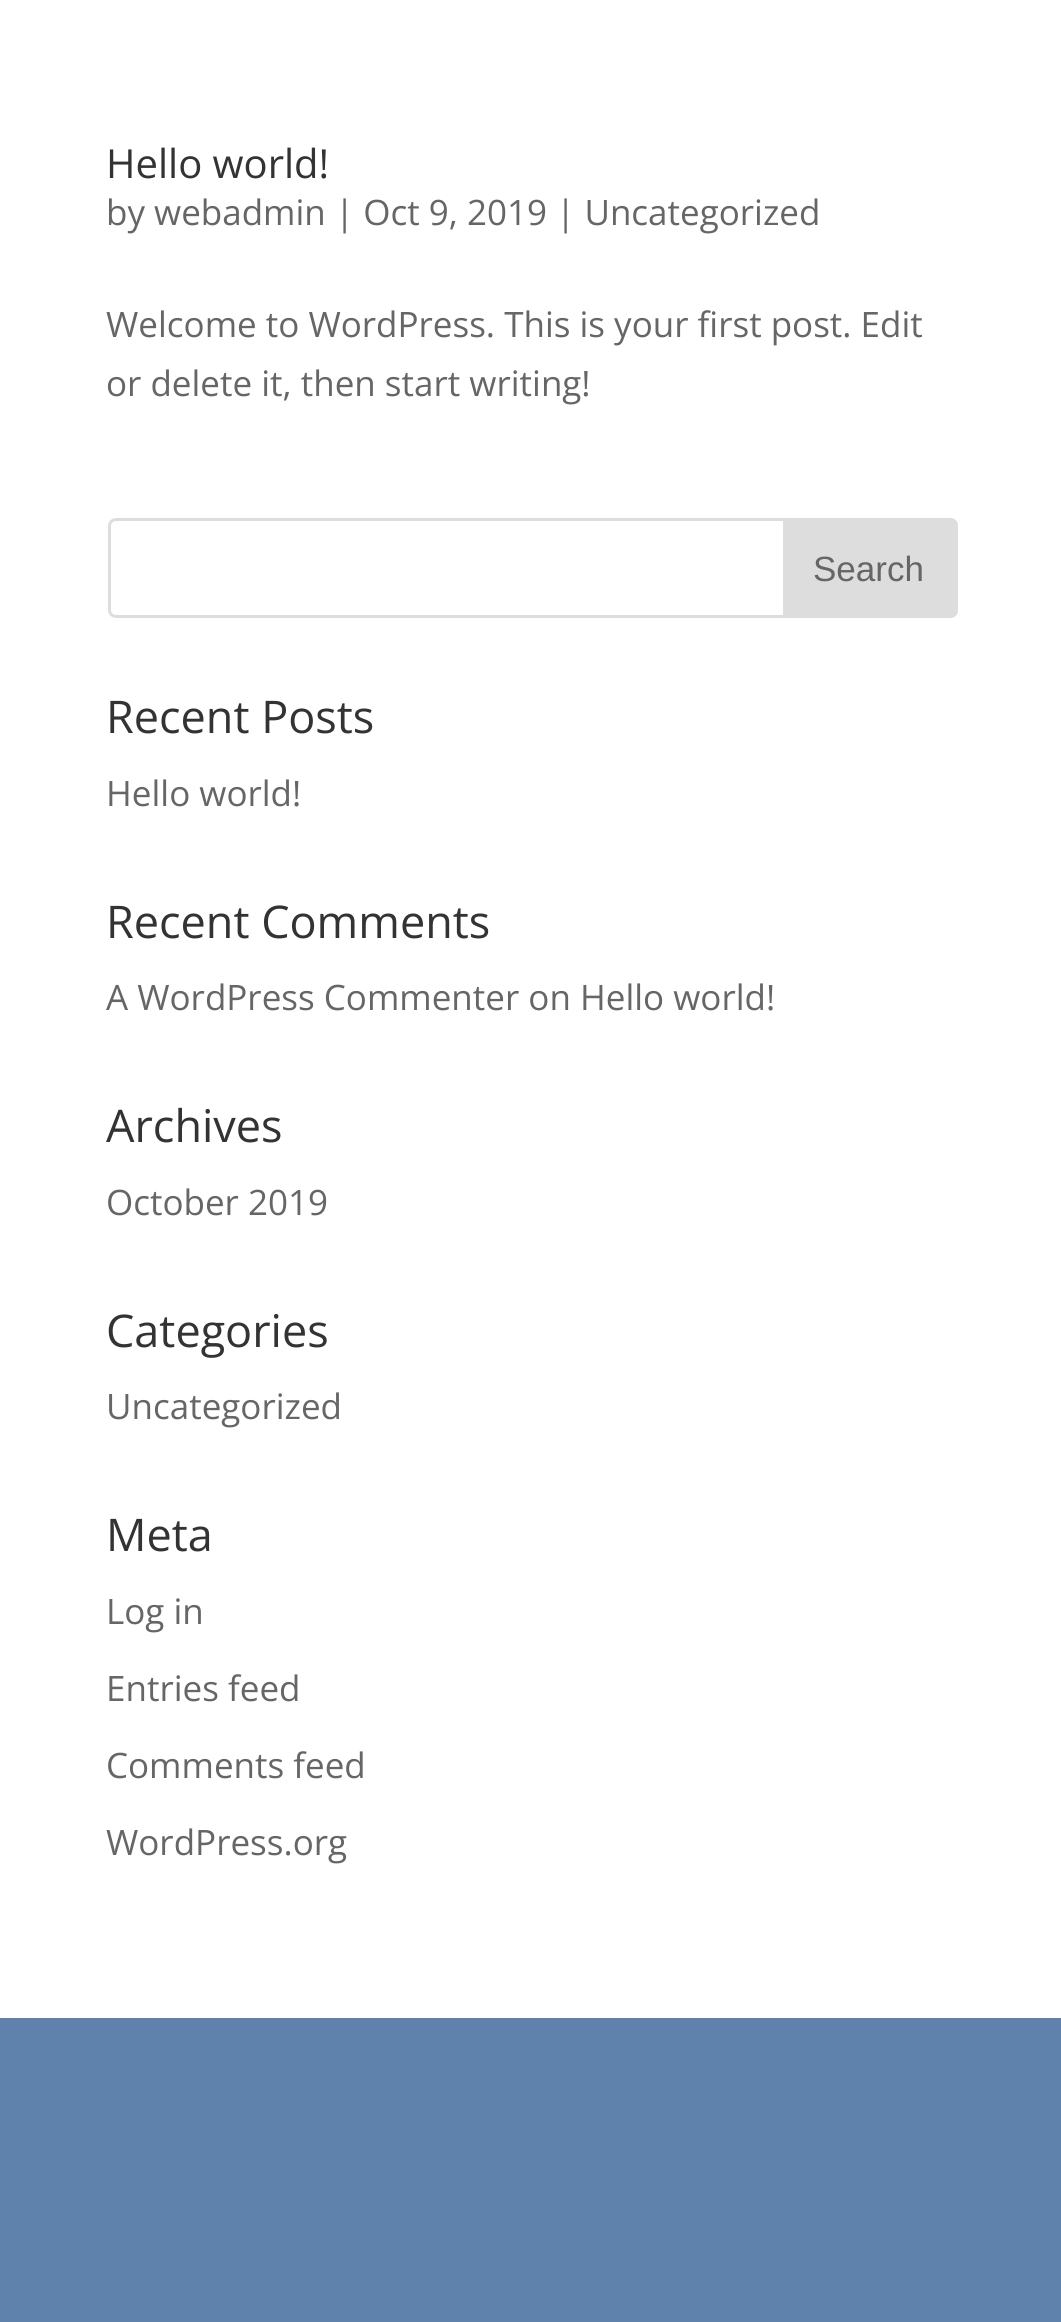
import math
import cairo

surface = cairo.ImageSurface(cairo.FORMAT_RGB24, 1061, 2322)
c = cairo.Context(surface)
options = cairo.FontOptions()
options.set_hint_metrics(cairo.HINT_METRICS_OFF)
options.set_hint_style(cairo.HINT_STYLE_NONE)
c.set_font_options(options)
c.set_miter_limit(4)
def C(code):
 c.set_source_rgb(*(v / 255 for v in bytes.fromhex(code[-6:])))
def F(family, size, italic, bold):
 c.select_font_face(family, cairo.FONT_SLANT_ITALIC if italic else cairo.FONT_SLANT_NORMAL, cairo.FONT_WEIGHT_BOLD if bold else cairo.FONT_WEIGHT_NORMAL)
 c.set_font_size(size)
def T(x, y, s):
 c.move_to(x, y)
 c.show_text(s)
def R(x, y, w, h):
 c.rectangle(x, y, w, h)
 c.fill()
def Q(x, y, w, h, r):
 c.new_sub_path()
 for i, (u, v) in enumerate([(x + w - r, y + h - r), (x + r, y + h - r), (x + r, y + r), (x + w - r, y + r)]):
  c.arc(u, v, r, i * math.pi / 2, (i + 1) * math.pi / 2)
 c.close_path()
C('5e82ac')
c.paint()
C('ffffff')
R(0,0,1061,2018)
F('Open Sans',40,0,0)
C('333333')
T(106,178,'Hello world!')
F('Open Sans',35,0,0)
C('666666')
T(106,225,'by webadmin | Oct 9, 2019 | Uncategorized')
T(106,337,'Welcome to WordPress. This is your first post. Edit')
T(106,396,'or delete it, then start writing!')
Q(109.5,519.5,847,97,6.5)
C('dddddd')
c.set_line_width(3)
c.stroke()
c.new_path()
c.move_to(784.5,519.5)
c.line_to(950,519.5)
c.curve_to(953.5,519.5,956.5,522.5,956.5,526)
c.line_to(956.5,610)
c.curve_to(956.5,613.5,953.5,616.5,950,616.5)
c.line_to(784.5,616.5)
c.close_path()
c.fill_preserve()
c.stroke()
F('Liberation Sans',35,0,0)
C('666666')
T(813,581,'Search')
F('Open Sans',45,0,0)
C('333333')
T(106,733,'Recent Posts')
F('Open Sans',35,0,0)
C('666666')
T(106,806,'Hello world!')
F('Open Sans',45,0,0)
C('333333')
T(106,938,'Recent Comments')
F('Open Sans',35,0,0)
C('666666')
T(106,1010,'A WordPress Commenter on Hello world!')
F('Open Sans',45,0,0)
C('333333')
T(106,1142,'Archives')
F('Open Sans',35,0,0)
C('666666')
T(106,1215,'October 2019')
F('Open Sans',45,0,0)
C('333333')
T(106,1347,'Categories')
F('Open Sans',35,0,0)
C('666666')
T(106,1419,'Uncategorized')
F('Open Sans',45,0,0)
C('333333')
T(106,1551,'Meta')
F('Open Sans',35,0,0)
C('666666')
T(106,1624,'Log in')
T(106,1701,'Entries feed')
T(106,1778,'Comments feed')
T(106,1855,'WordPress.org')
surface.write_to_png('o.png')
